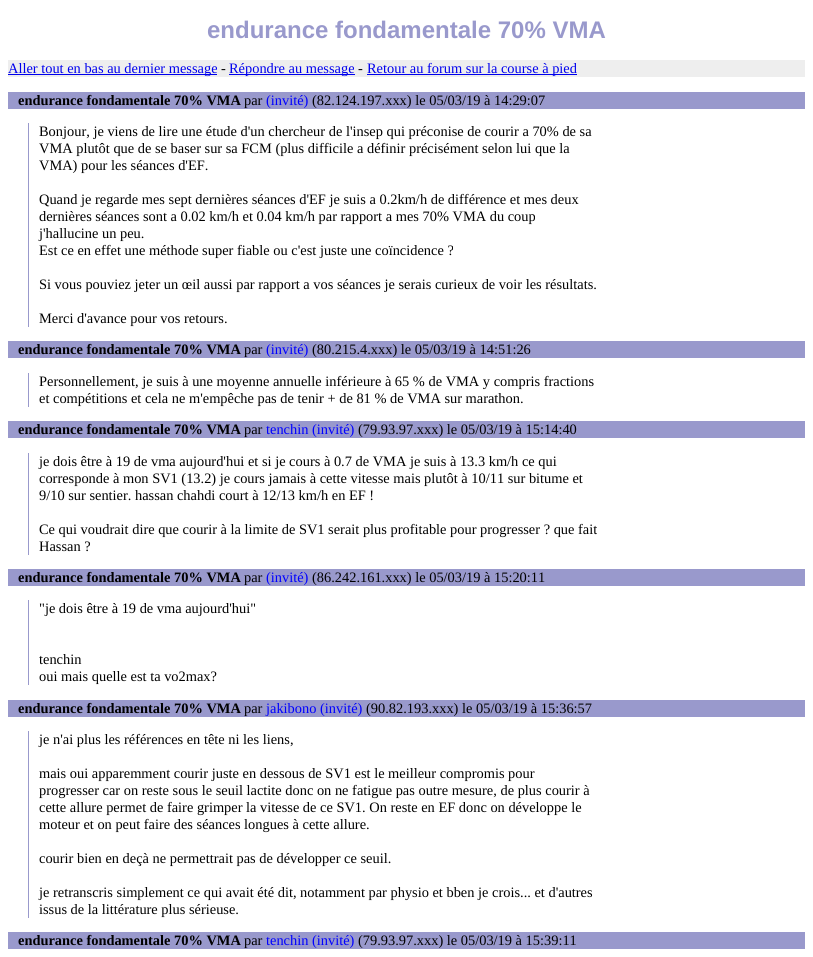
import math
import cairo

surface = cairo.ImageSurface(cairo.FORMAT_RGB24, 813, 957)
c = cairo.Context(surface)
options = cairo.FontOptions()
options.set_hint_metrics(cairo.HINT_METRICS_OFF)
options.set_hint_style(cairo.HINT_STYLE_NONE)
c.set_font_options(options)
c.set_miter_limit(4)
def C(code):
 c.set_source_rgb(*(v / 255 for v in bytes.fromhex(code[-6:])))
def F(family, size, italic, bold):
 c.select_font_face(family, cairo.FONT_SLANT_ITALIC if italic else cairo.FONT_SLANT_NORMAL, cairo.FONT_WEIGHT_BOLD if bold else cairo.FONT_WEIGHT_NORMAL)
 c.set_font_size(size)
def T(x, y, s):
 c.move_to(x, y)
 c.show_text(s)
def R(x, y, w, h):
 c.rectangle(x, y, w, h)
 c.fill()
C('ffffff')
c.paint()
F('Liberation Sans',24,0,1)
C('9999cc')
T(207,38,'endurance fondamentale 70% VMA')
C('eeeeee')
R(8,60,797,17)
C('0000ee')
R(8,74,209,1)
F('Liberation Serif',14.4,0,0)
T(8,73,'Aller tout en bas au dernier message')
C('000000')
T(221,73,'-')
C('0000ee')
R(229,74,126,1)
T(229,73,'Répondre au message')
C('000000')
T(358,73,'-')
C('0000ee')
R(367,74,210,1)
T(367,73,'Retour au forum sur la course à pied')
C('9999cc')
R(8,92,797,17)
F('Liberation Serif',14.4,0,1)
C('000000')
T(18,105,'endurance fondamentale 70% VMA')
F('Liberation Serif',14.4,0,0)
T(244,105,'par')
C('0000ff')
T(266,105,'(invité)')
C('000000')
T(312,105,'(82.124.197.xxx) le 05/03/19 à 14:29:07')
C('9999cc')
R(28,123,1,204)
C('000000')
T(39,136,'Bonjour, je viens de lire une étude d\'un chercheur de l\'insep qui préconise de courir a 70% de sa')
T(39,153,'VMA plutôt que de se baser sur sa FCM (plus difficile a définir précisément selon lui que la')
T(39,170,'VMA) pour les séances d\'EF.')
T(39,204,'Quand je regarde mes sept dernières séances d\'EF je suis a 0.2km/h de différence et mes deux')
T(39,221,'dernières séances sont a 0.02 km/h et 0.04 km/h par rapport a mes 70% VMA du coup')
T(39,238,'j\'hallucine un peu.')
T(39,255,'Est ce en effet une méthode super fiable ou c\'est juste une coïncidence ?')
T(39,289,'Si vous pouviez jeter un œil aussi par rapport a vos séances je serais curieux de voir les résultats.')
T(39,323,'Merci d\'avance pour vos retours.')
C('9999cc')
R(8,341,797,17)
F('Liberation Serif',14.4,0,1)
C('000000')
T(18,354,'endurance fondamentale 70% VMA')
F('Liberation Serif',14.4,0,0)
T(244,354,'par')
C('0000ff')
T(266,354,'(invité)')
C('000000')
T(312,354,'(80.215.4.xxx) le 05/03/19 à 14:51:26')
C('9999cc')
R(28,373,1,34)
C('000000')
T(39,386,'Personnellement, je suis à une moyenne annuelle inférieure à 65 % de VMA y compris fractions')
T(39,403,'et compétitions et cela ne m\'empêche pas de tenir + de 81 % de VMA sur marathon.')
C('9999cc')
R(8,421,797,17)
F('Liberation Serif',14.4,0,1)
C('000000')
T(18,434,'endurance fondamentale 70% VMA')
F('Liberation Serif',14.4,0,0)
T(244,434,'par')
C('0000ff')
T(266,434,'tenchin (invité)')
C('000000')
T(358,434,'(79.93.97.xxx) le 05/03/19 à 15:14:40')
C('9999cc')
R(28,453,1,102)
C('000000')
T(39,466,'je dois être à 19 de vma aujourd\'hui et si je cours à 0.7 de VMA je suis à 13.3 km/h ce qui')
T(39,483,'corresponde à mon SV1 (13.2) je cours jamais à cette vitesse mais plutôt à 10/11 sur bitume et')
T(39,500,'9/10 sur sentier. hassan chahdi court à 12/13 km/h en EF !')
T(39,534,'Ce qui voudrait dire que courir à la limite de SV1 serait plus profitable pour progresser ? que fait')
T(39,551,'Hassan ?')
C('9999cc')
R(8,569,797,17)
F('Liberation Serif',14.4,0,1)
C('000000')
T(18,582,'endurance fondamentale 70% VMA')
F('Liberation Serif',14.4,0,0)
T(244,582,'par')
C('0000ff')
T(266,582,'(invité)')
C('000000')
T(312,582,'(86.242.161.xxx) le 05/03/19 à 15:20:11')
C('9999cc')
R(28,600,1,85)
C('000000')
T(39,613,'"je dois être à 19 de vma aujourd\'hui"')
T(39,664,'tenchin')
T(39,681,'oui mais quelle est ta vo2max?')
C('9999cc')
R(8,700,797,17)
F('Liberation Serif',14.4,0,1)
C('000000')
T(18,713,'endurance fondamentale 70% VMA')
F('Liberation Serif',14.4,0,0)
T(244,713,'par')
C('0000ff')
T(266,713,'jakibono (invité)')
C('000000')
T(366,713,'(90.82.193.xxx) le 05/03/19 à 15:36:57')
C('9999cc')
R(28,731,1,187)
C('000000')
T(39,744,'je n\'ai plus les références en tête ni les liens,')
T(39,778,'mais oui apparemment courir juste en dessous de SV1 est le meilleur compromis pour')
T(39,795,'progresser car on reste sous le seuil lactite donc on ne fatigue pas outre mesure, de plus courir à')
T(39,812,'cette allure permet de faire grimper la vitesse de ce SV1. On reste en EF donc on développe le')
T(39,829,'moteur et on peut faire des séances longues à cette allure.')
T(39,863,'courir bien en deçà ne permettrait pas de développer ce seuil.')
T(39,897,'je retranscris simplement ce qui avait été dit, notamment par physio et bben je crois... et d\'autres')
T(39,914,'issus de la littérature plus sérieuse.')
C('9999cc')
R(8,932,797,17)
F('Liberation Serif',14.4,0,1)
C('000000')
T(18,945,'endurance fondamentale 70% VMA')
F('Liberation Serif',14.4,0,0)
T(244,945,'par')
C('0000ff')
T(266,945,'tenchin (invité)')
C('000000')
T(358,945,'(79.93.97.xxx) le 05/03/19 à 15:39:11')
surface.write_to_png('o.png')
